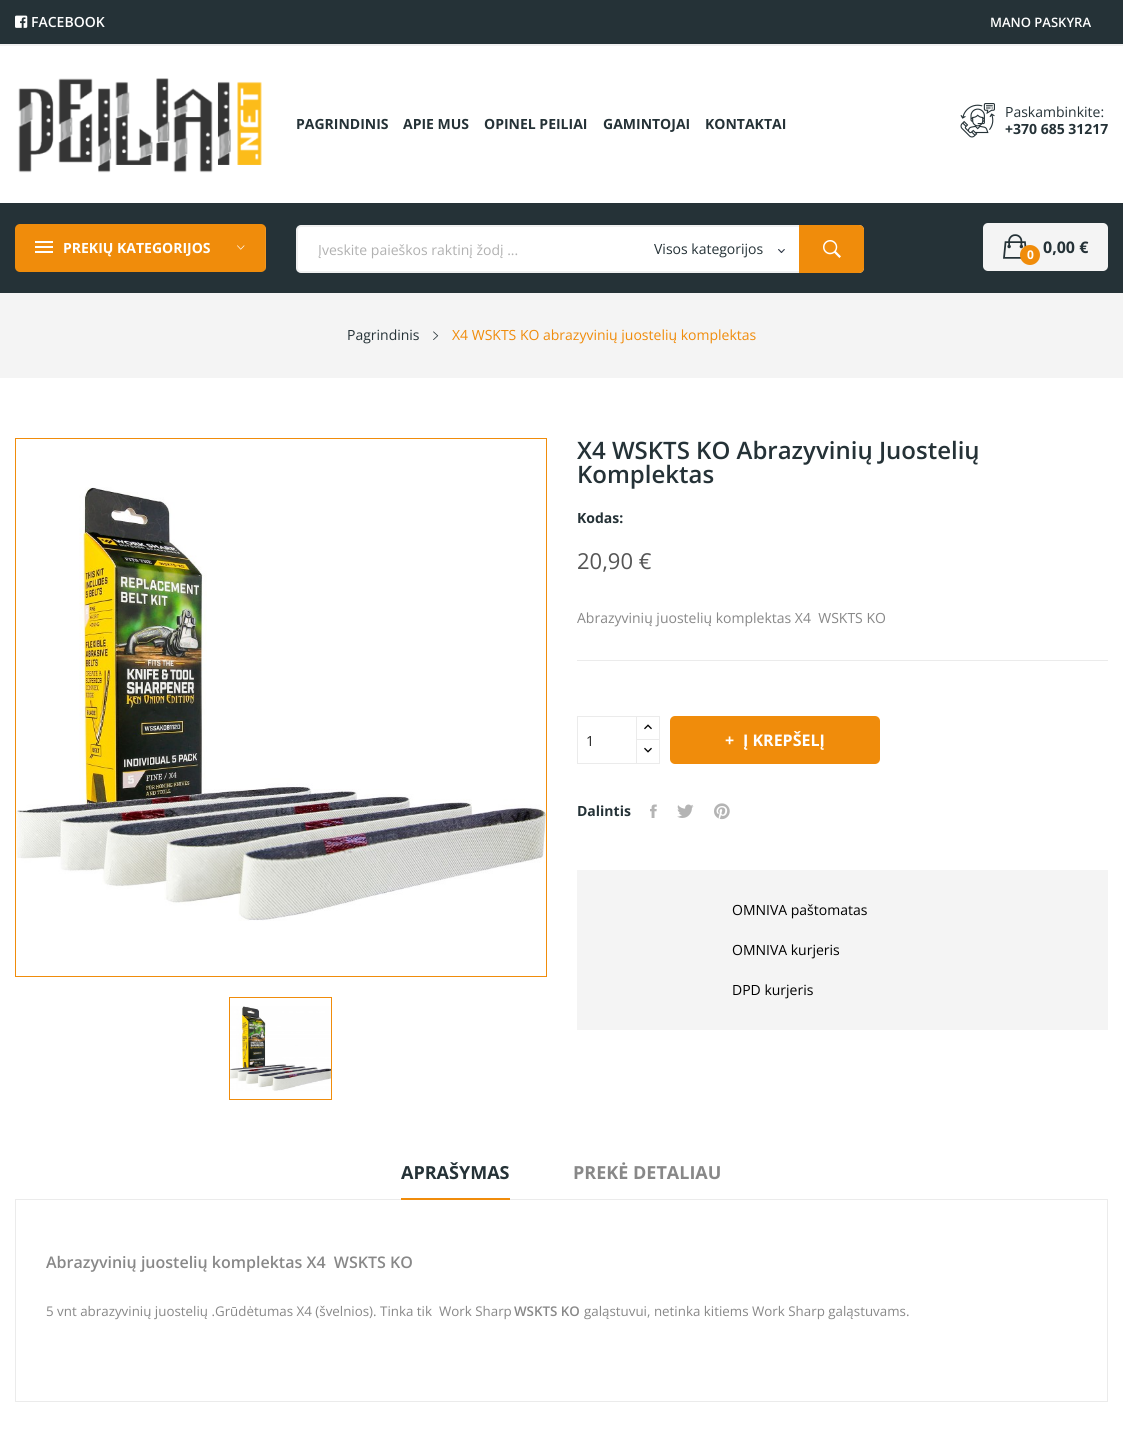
import math
import cairo

surface = cairo.ImageSurface(cairo.FORMAT_RGB24, 1123, 1453)
c = cairo.Context(surface)
options = cairo.FontOptions()
options.set_hint_metrics(cairo.HINT_METRICS_OFF)
options.set_hint_style(cairo.HINT_STYLE_NONE)
c.set_font_options(options)
c.set_miter_limit(4)
def C(code):
 c.set_source_rgb(*(v / 255 for v in bytes.fromhex(code[-6:])))
def F(family, size, italic, bold):
 c.select_font_face(family, cairo.FONT_SLANT_ITALIC if italic else cairo.FONT_SLANT_NORMAL, cairo.FONT_WEIGHT_BOLD if bold else cairo.FONT_WEIGHT_NORMAL)
 c.set_font_size(size)
def T(x, y, s):
 c.move_to(x, y)
 c.show_text(s)
def R(x, y, w, h):
 c.rectangle(x, y, w, h)
 c.fill()
def Q(x, y, w, h, r):
 c.new_sub_path()
 for i, (u, v) in enumerate([(x + w - r, y + h - r), (x + r, y + h - r), (x + r, y + r), (x + w - r, y + r)]):
  c.arc(u, v, r, i * math.pi / 2, (i + 1) * math.pi / 2)
 c.close_path()
def I(path, x, y, w, h):
 c.save()
 c.set_source_surface(cairo.ImageSurface.create_from_png(path), x, y)
 c.rectangle(x, y, w, h)
 c.fill()
 c.restore()
C('ffffff')
c.paint()
C('253237')
R(0,0,1123,44)
C('f1f1f1')
R(0,44,1123,2)
I('1.png',15,15,13,13)
F('Open Sans SemiBold',14,0,0)
C('ffffff')
T(31,27,'FACEBOOK')
F('Open Sans SemiBold',13,0,0)
T(990,27,'MANO PASKYRA')
I('2.png',18,78,244,95)
F('Open Sans',14,0,1)
C('253237')
T(296,129,'PAGRINDINIS')
T(403,129,'APIE MUS')
T(484,129,'OPINEL PEILIAI')
T(603,129,'GAMINTOJAI')
T(705,129,'KONTAKTAI')
I('3.png',960,103,35,35)
F('Open Sans',14,0,0)
T(1005,117,'Paskambinkite:')
F('Open Sans',14,0,1)
T(1005,134,'+370 685 31217')
R(0,203,1123,90)
C('f08c0b')
Q(15,224,251,48,5)
c.fill()
c.set_source_rgba(1,1,1,0.1)
R(265,227,1,43)
I('4.png',35,241,18,12)
C('ffffff')
T(63,253,'PREKIŲ KATEGORIJOS')
I('5.png',237,245,8,5)
Q(297,226,566,46,4)
c.fill_preserve()
C('f0f0f0')
c.stroke()
F('Open Sans',14,0,0)
C('b1b1b1')
T(318,255,'Įveskite paieškos raktinį žodį ...')
I('6.png',778,249,7,4)
C('253237')
T(654,254,'Visos kategorijos')
C('f08c0b')
c.new_path()
c.move_to(799,225)
c.line_to(859,225)
c.curve_to(862,225,864,227,864,230)
c.line_to(864,268)
c.curve_to(864,271,862,273,859,273)
c.line_to(799,273)
c.close_path()
c.fill()
I('7.png',823,240,18,18)
C('f4f4f4')
Q(983,223,125,48,5)
c.fill()
I('8.png',1003,234,24,25)
C('f08c0b')
c.arc(1030,255,10,0,2 * math.pi)
c.fill()
F('Open Sans',12,0,1)
C('ffffff')
T(1027,259,'0')
F('Open Sans',16,0,1)
C('253237')
T(1043,253,'0,00 €')
C('f4f4f4')
R(0,293,1123,85)
F('Open Sans',14,0,0)
C('253237')
T(347,340,'Pagrindinis')
I('9.png',433,331,6,9)
C('f08c0b')
T(452,340,'X4 WSKTS KO abrazyvinių juostelių komplektas')
c.rectangle(15.5,438.5,531,538)
c.set_line_width(1)
c.stroke()
I('10.png',16,487,530,434)
I('11.png',230,1006,101,85)
c.rectangle(229.5,997.5,102,102)
c.stroke()
F('Open Sans SemiBold',24,0,0)
C('253237')
T(577,459,'X4 WSKTS KO Abrazyvinių Juostelių')
T(577,483,'Komplektas')
F('Open Sans',14,0,1)
T(577,523,'Kodas:')
F('Open Sans',22,0,0)
C('555555')
T(577,569,'20,90 €')
C('ebebeb')
R(577,660,531,1)
F('Open Sans',14,0,0)
C('888888')
T(577,623,'Abrazyvinių juostelių komplektas X4  WSKTS KO')
c.rectangle(636.5,716.5,23,24)
C('ebebeb')
c.stroke()
C('ffffff')
R(637,740,22,1)
c.rectangle(636.5,739.5,23,24)
C('ebebeb')
c.stroke()
c.rectangle(577.5,716.5,59,47)
c.stroke()
C('232323')
T(586,746,'1')
I('12.png',644,724,8,6)
I('13.png',644,747,8,6)
C('f08c0b')
Q(670,716,210,48,5)
c.fill()
F('Open Sans',16,0,1)
C('ffffff')
T(725,746,'+')
T(743,746,'Į KREPŠELĮ')
F('Open Sans',14,0,1)
C('253237')
T(577,816,'Dalintis')
I('14.png',650,804,7,14)
I('15.png',677,804,17,14)
I('16.png',714,803,16,17)
C('f4f4f4')
R(577,870,531,160)
F('Open Sans',14,0,0)
C('000000')
T(732,915,'OMNIVA paštomatas')
T(732,955,'OMNIVA kurjeris')
T(732,995,'DPD kurjeris')
F('Open Sans',18,0,1)
C('253237')
T(401,1179,'APRAŠYMAS')
c.rectangle(15.5,1199.5,1092,202)
C('ebebeb')
c.stroke()
C('f08c0b')
R(401,1198,109,2)
C('888888')
T(573,1179,'PREKĖ DETALIAU')
F('Open Sans SemiBold',16,0,0)
T(46,1268,'Abrazyvinių juostelių komplektas X4  WSKTS KO')
F('Open Sans',13.35,0,0)
T(46,1316,'5 vnt abrazyvinių juostelių .Grūdėtumas X4 (švelnios). Tinka tik  Work Sharp')
F('Open Sans SemiBold',13.35,0,0)
T(514,1316,'WSKTS KO')
F('Open Sans',13.35,0,0)
T(584,1316,'galąstuvui, netinka kitiems Work Sharp galąstuvams.')
surface.write_to_png('o.png')
